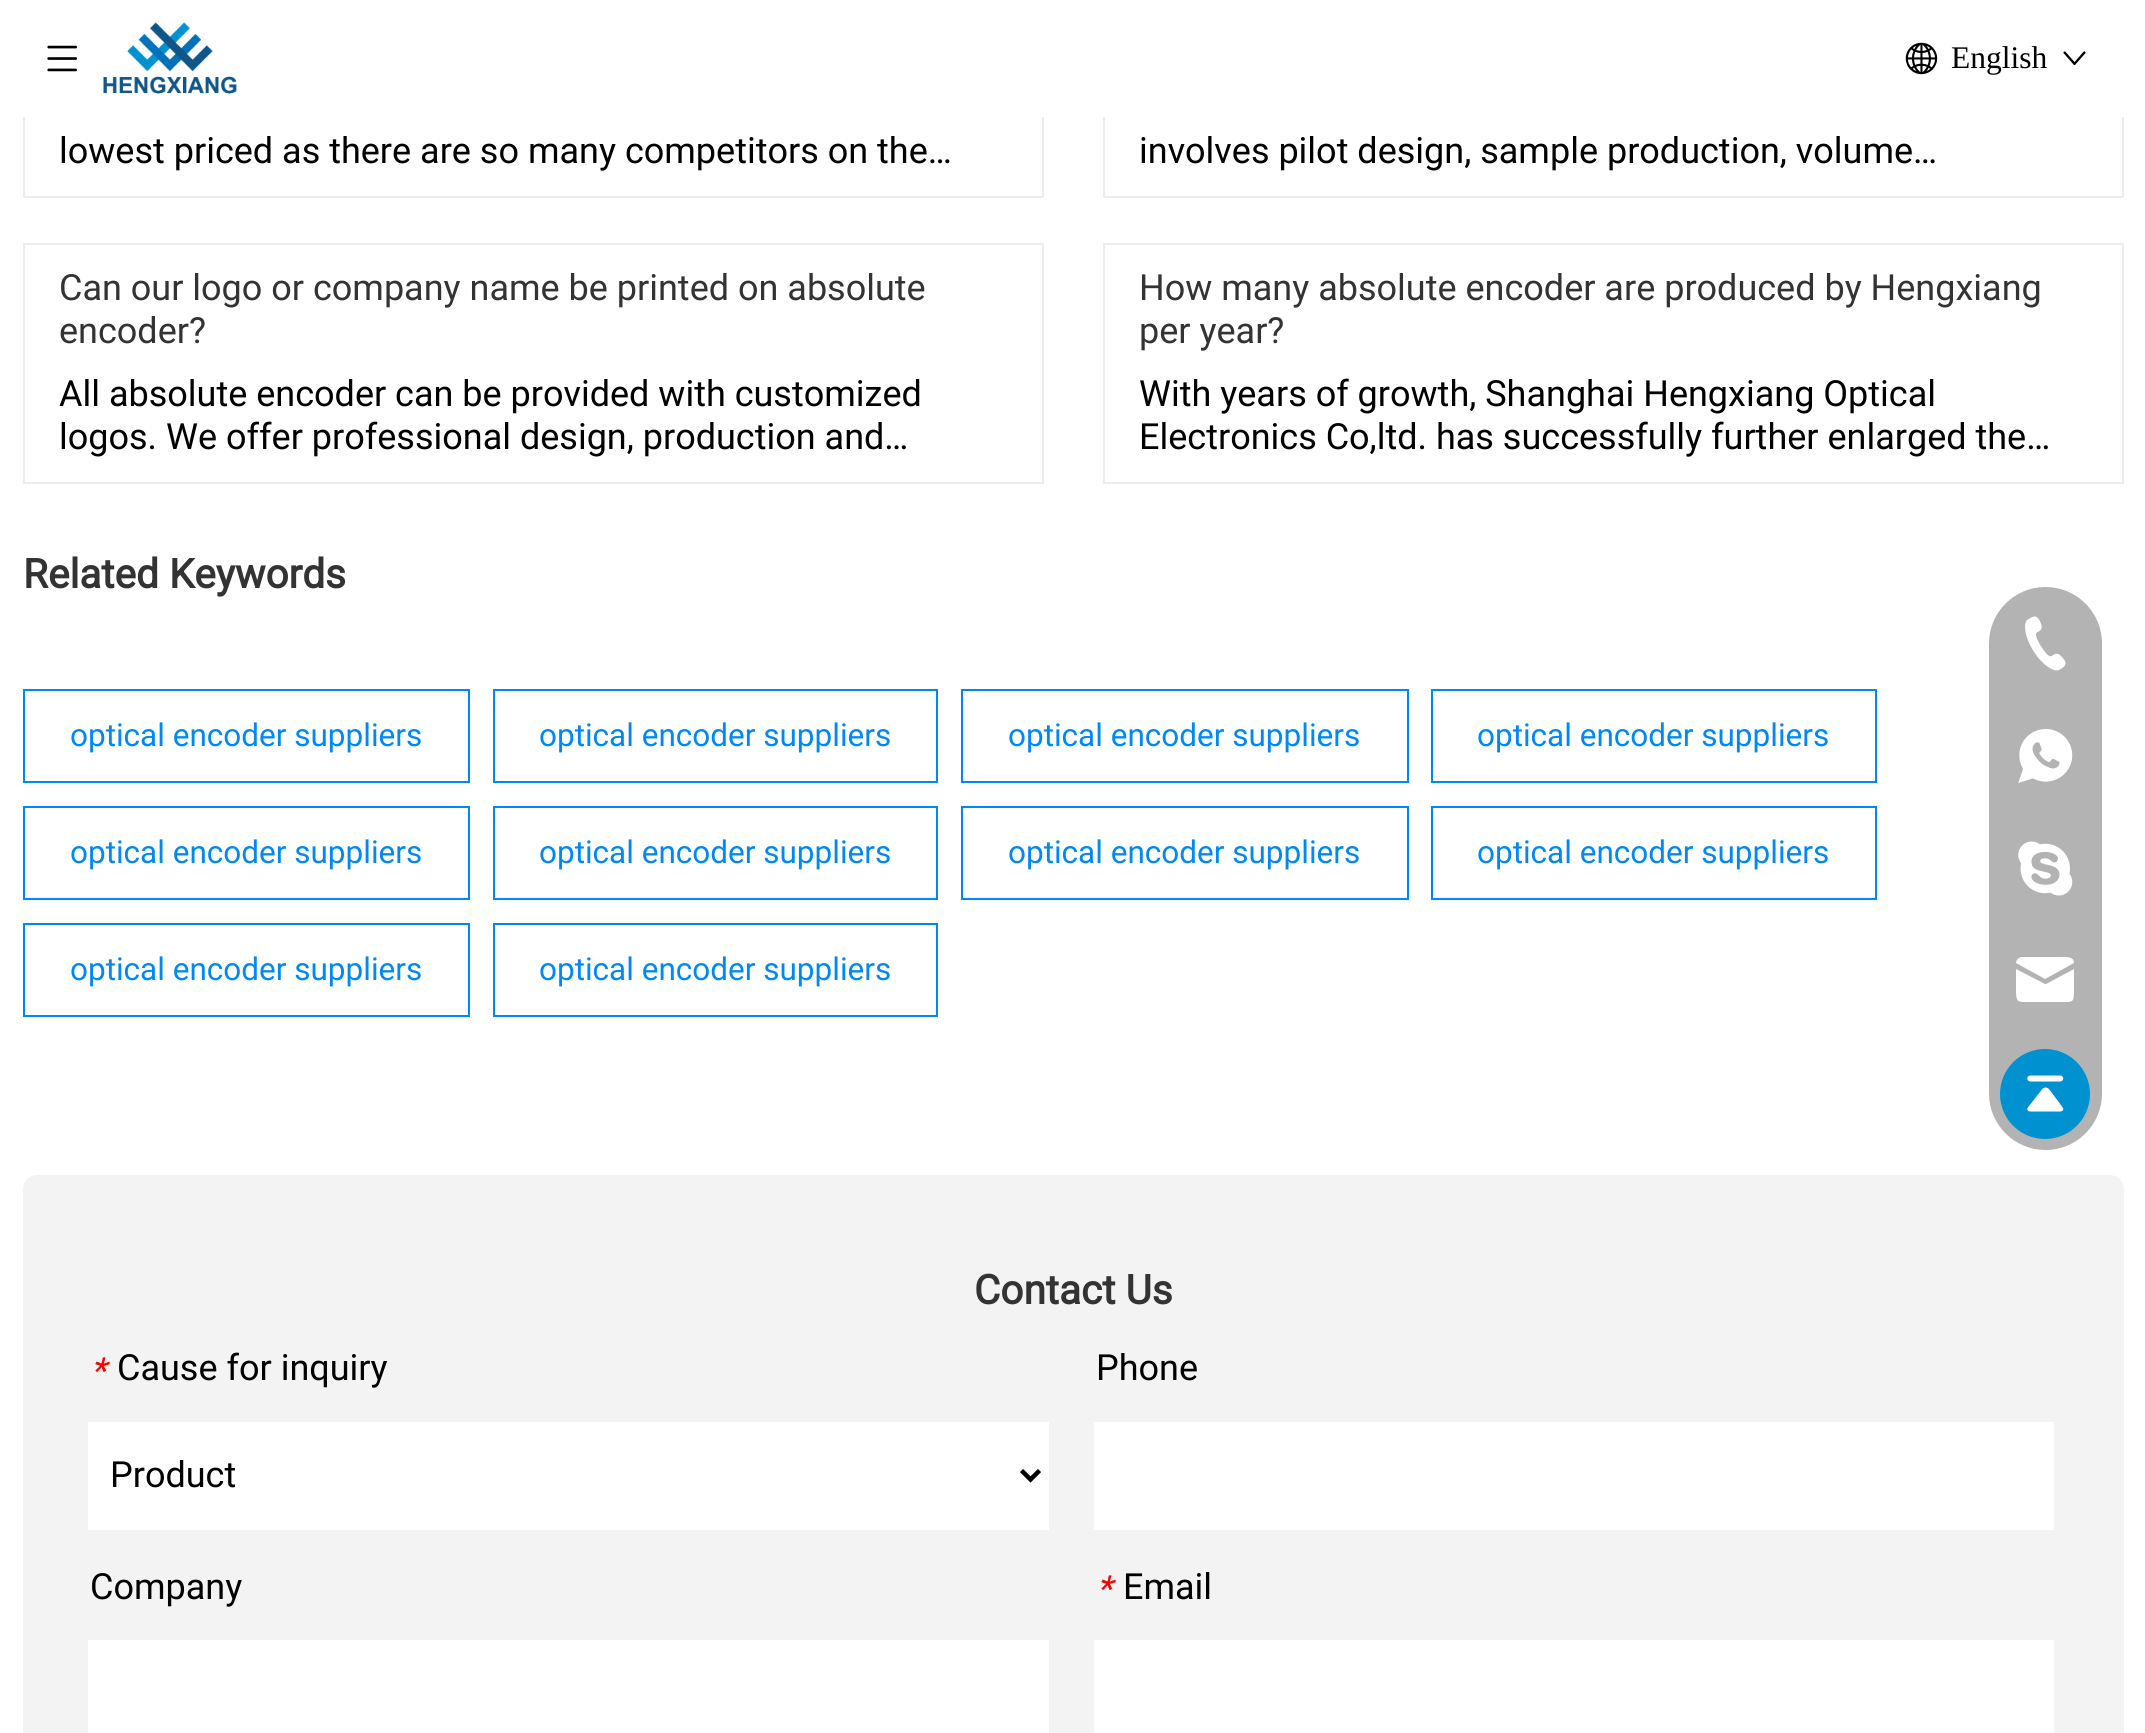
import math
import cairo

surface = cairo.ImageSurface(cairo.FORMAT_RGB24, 2145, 1733)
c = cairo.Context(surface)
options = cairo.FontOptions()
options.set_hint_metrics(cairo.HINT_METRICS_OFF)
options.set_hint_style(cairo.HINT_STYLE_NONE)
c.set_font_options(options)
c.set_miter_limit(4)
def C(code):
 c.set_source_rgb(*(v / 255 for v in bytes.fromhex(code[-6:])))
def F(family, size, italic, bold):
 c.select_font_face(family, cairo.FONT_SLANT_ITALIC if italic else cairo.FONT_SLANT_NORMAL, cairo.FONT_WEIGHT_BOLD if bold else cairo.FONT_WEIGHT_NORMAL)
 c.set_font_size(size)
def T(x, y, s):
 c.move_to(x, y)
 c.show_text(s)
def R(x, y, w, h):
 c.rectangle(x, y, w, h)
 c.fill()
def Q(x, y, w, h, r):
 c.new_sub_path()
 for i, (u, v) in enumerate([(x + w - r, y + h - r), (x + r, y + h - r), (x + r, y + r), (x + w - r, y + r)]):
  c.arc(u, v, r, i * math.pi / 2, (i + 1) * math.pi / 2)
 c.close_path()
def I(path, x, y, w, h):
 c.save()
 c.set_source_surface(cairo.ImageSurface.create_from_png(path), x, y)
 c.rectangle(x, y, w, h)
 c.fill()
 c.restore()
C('ffffff')
c.paint()
c.rectangle(24,1,1019,196)
C('ededed')
c.stroke()
c.rectangle(1104,1,1019,196)
c.stroke()
C('ffffff')
R(23,0,2101,117)
I('1.png',47,45,30,27)
I('2.png',103,22,134,72)
I('3.png',1905,42,33,33)
F('Liberation Serif',31.5,0,0)
C('000000')
T(1951,68,'English')
I('4.png',2063,51,23,14)
F('Roboto',36,0,0)
T(59,163,'lowest priced as there are so many competitors on the…')
T(1139,163,'involves pilot design, sample production, volume…')
c.rectangle(24,244,1019,239)
C('ededed')
c.stroke()
C('333333')
T(59,300,'Can our logo or company name be printed on absolute')
T(59,343,'encoder?')
C('000000')
T(59,406,'All absolute encoder can be provided with customized')
T(59,449,'logos. We offer professional design, production and…')
c.rectangle(1104,244,1019,239)
C('ededed')
c.stroke()
C('333333')
T(1139,300,'How many absolute encoder are produced by Hengxiang')
T(1139,343,'per year?')
C('000000')
T(1139,406,'With years of growth, Shanghai Hengxiang Optical')
T(1139,449,'Electronics Co,ltd. has successfully further enlarged the…')
F('Roboto',40.5,0,1)
C('333333')
T(23,588,'Related Keywords')
c.rectangle(24,690,445,92)
C('0089f5')
c.stroke()
F('Roboto',31.5,0,0)
T(70,746,'optical encoder suppliers')
c.rectangle(494,690,443,92)
c.stroke()
T(539,746,'optical encoder suppliers')
c.rectangle(962,690,446,92)
c.stroke()
T(1008,746,'optical encoder suppliers')
c.rectangle(1432,690,444,92)
c.stroke()
T(1477,746,'optical encoder suppliers')
c.rectangle(24,807,445,92)
c.stroke()
T(70,863,'optical encoder suppliers')
c.rectangle(494,807,443,92)
c.stroke()
T(539,863,'optical encoder suppliers')
c.rectangle(962,807,446,92)
c.stroke()
T(1008,863,'optical encoder suppliers')
c.rectangle(1432,807,444,92)
c.stroke()
T(1477,863,'optical encoder suppliers')
c.rectangle(24,924,445,92)
c.stroke()
T(70,980,'optical encoder suppliers')
c.rectangle(494,924,443,92)
c.stroke()
T(539,980,'optical encoder suppliers')
C('f3f3f3')
Q(23,1175,2101,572,14)
c.fill()
F('Roboto',40.5,0,1)
C('333333')
T(974,1304,'Contact Us')
F('Roboto',36,1,0)
C('ff0000')
T(90,1383,'*')
F('Roboto',36,0,0)
C('000000')
T(117,1380,'Cause for inquiry')
C('ffffff')
R(88,1422,961,108)
c.new_path()
c.move_to(1021.5,1470.5)
c.line_to(1030.5,1479.5)
c.line_to(1039.5,1470.5)
C('000000')
c.set_line_width(4.5)
c.stroke()
T(110,1487,'Product')
T(1096,1380,'Phone')
C('ffffff')
R(1094,1422,960,108)
C('000000')
T(90,1599,'Company')
C('ffffff')
R(88,1640,961,93)
F('Roboto',36,1,0)
C('ff0000')
T(1096,1601,'*')
F('Roboto',36,0,0)
C('000000')
T(1123,1599,'Email')
C('ffffff')
R(1094,1640,960,93)
C('b3b3b3')
Q(1989,587,113,563,56.5)
c.fill()
I('5.png',2025,616,41,55)
I('6.png',2018,729,55,54)
I('7.png',2018,841,55,55)
C('ffffff')
c.new_path()
c.move_to(2022,957)
c.line_to(2061,957)
c.curve_to(2065,957,2074,956,2074,963)
c.line_to(2045,979)
c.line_to(2016,963)
c.curve_to(2016,960,2019,957,2022,957)
c.close_path()
c.move_to(2016,969)
c.line_to(2016,992)
c.curve_to(2016,1003,2019,1002,2030,1002)
c.line_to(2061,1002)
c.curve_to(2072,1002,2074,1003,2074,992)
c.line_to(2074,969)
c.line_to(2046,984)
c.line_to(2045,984)
c.close_path()
c.fill()
C('0091d0')
c.arc(2045,1094,45,0,2 * math.pi)
c.fill()
I('8.png',2027,1075,37,37)
surface.write_to_png('o.png')
